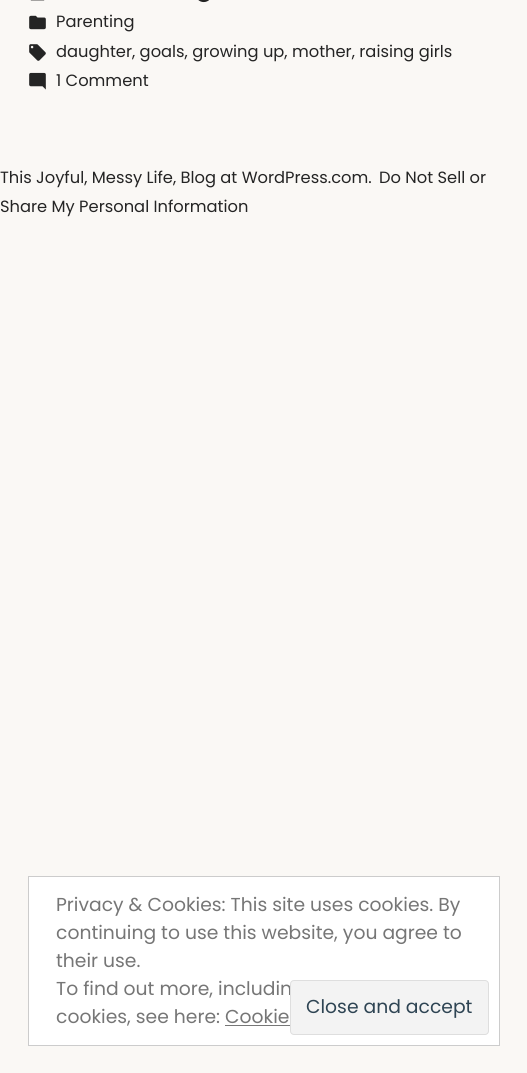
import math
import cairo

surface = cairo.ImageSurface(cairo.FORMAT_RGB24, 527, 1073)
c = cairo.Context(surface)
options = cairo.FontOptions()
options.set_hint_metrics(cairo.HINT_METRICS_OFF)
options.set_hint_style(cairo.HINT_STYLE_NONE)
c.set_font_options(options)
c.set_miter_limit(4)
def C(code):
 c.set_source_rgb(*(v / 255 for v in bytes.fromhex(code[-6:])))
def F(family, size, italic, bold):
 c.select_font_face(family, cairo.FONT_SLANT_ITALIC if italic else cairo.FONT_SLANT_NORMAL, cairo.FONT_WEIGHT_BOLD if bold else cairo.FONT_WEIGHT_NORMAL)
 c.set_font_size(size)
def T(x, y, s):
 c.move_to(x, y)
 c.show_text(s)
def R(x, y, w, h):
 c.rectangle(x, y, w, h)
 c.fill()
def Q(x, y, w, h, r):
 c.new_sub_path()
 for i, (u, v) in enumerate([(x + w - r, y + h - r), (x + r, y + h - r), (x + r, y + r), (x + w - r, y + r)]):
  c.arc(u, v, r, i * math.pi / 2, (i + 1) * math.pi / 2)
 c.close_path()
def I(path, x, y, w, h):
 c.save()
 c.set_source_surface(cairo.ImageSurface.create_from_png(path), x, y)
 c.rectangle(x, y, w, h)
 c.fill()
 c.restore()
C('faf8f5')
c.paint()
I('1.png',30,0,15,1)
I('2.png',198,0,11,3)
I('3.png',29,15,17,15)
F('Poppins',16.3,0,0)
C('242424')
T(56,27,'Parenting')
I('4.png',29,44,17,17)
T(56,57,'daughter, goals, growing up, mother, raising girls')
I('5.png',29,72,17,18)
T(56,86,'1 Comment')
T(0,183,'This Joyful, Messy Life, Blog at WordPress.com.')
T(379,183,'Do Not Sell or')
T(0,212,'Share My Personal Information')
C('ffffff')
c.rectangle(28.5,876.5,471,169)
c.fill_preserve()
C('cccccc')
c.set_line_width(1)
c.stroke()
F('Poppins',18.75,0,0)
C('767676')
T(56,911,'Privacy & Cookies: This site uses cookies. By')
T(56,939,'continuing to use this website, you agree to')
T(56,967,'their use.')
T(56,995,'To find out more, includin')
T(56,1023,'cookies, see here: Cookie')
C('f3f3f3')
Q(290.5,980.5,198,54,3.5)
c.fill_preserve()
C('dedede')
c.stroke()
C('2e4453')
T(306,1013,'Close and accept')
C('767676')
R(225,1025,65,1)
surface.write_to_png('o.png')
